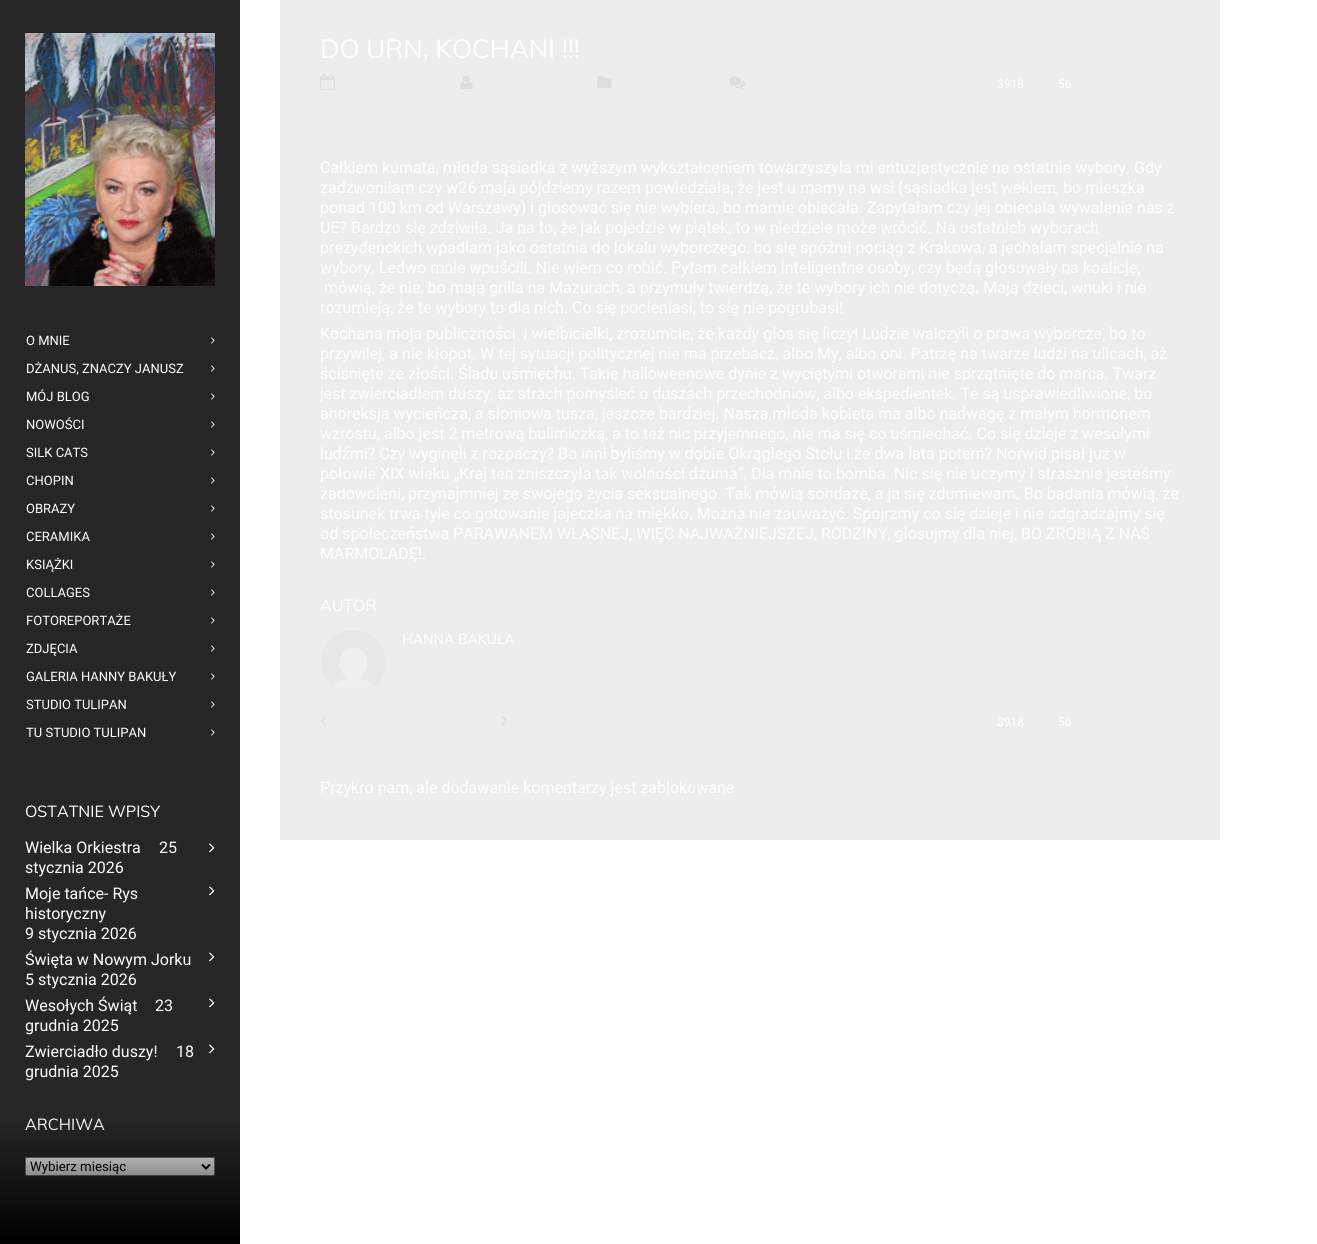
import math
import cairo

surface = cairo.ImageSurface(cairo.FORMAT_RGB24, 1317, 1244)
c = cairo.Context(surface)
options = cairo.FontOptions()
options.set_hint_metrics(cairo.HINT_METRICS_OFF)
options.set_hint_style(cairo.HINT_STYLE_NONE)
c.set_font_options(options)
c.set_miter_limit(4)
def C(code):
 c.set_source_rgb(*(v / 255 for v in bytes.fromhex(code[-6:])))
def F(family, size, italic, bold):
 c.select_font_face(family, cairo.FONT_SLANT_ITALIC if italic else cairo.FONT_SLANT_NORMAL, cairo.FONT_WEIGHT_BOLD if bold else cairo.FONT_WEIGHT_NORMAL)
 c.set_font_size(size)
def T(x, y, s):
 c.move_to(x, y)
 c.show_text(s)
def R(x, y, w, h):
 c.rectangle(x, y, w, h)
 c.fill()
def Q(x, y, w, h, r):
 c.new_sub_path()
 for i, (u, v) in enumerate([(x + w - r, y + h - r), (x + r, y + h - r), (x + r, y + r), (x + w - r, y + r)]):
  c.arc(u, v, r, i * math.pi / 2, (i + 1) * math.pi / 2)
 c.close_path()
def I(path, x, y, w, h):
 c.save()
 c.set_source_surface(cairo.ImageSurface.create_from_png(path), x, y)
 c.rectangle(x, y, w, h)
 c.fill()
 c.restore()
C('ffffff')
c.paint()
C('262626')
R(0,0,240,1243)
I('1.png',25,33,190,253)
F('Roboto',13,0,0)
C('ffffff')
T(26,345,'O MNIE')
I('2.png',211,337,4,7)
T(26,373,'DŻANUS, ZNACZY JANUSZ')
I('2.png',211,365,4,7)
T(26,401,'MÓJ BLOG')
I('2.png',211,393,4,7)
T(26,429,'NOWOŚCI')
I('2.png',211,421,4,7)
T(26,457,'SILK CATS')
I('2.png',211,449,4,7)
T(26,485,'CHOPIN')
I('2.png',211,477,4,7)
T(26,513,'OBRAZY')
I('2.png',211,505,4,7)
T(26,541,'CERAMIKA')
I('2.png',211,533,4,7)
T(26,569,'KSIĄŻKI')
I('2.png',211,561,4,7)
T(26,597,'COLLAGES')
I('2.png',211,589,4,7)
T(26,625,'FOTOREPORTAŻE')
I('2.png',211,617,4,7)
T(26,653,'ZDJĘCIA')
I('2.png',211,645,4,7)
T(26,681,'GALERIA HANNY BAKUŁY')
I('2.png',211,673,4,7)
T(26,709,'STUDIO TULIPAN')
I('2.png',211,701,4,7)
T(26,737,'TU STUDIO TULIPAN')
I('2.png',211,729,4,7)
F('Muli',16,0,0)
T(25,817,'OSTATNIE WPISY')
F('Roboto',16,0,0)
T(25,853,'Wielka Orkiestra')
I('3.png',209,843,6,10)
T(159,853,'25')
T(25,873,'stycznia 2026')
T(25,899,'Moje tańce- Rys')
I('3.png',209,886,6,10)
T(25,919,'historyczny')
T(25,939,'9 stycznia 2026')
T(25,965,'Święta w Nowym Jorku')
I('3.png',209,952,6,10)
T(25,985,'5 stycznia 2026')
T(25,1011,'Wesołych Świąt')
I('3.png',209,998,6,10)
T(155,1011,'23')
T(25,1031,'grudnia 2025')
T(25,1057,'Zwierciadło duszy!')
I('3.png',209,1044,6,10)
T(176,1057,'18')
T(25,1077,'grudnia 2025')
F('Muli',16,0,0)
T(25,1130,'ARCHIWA')
Q(25.5,1157.5,189,18,1.5)
c.fill_preserve()
C('767676')
c.set_line_width(1)
c.stroke()
c.new_path()
c.move_to(202,1164.5)
c.line_to(206,1168.5)
c.line_to(210,1164.5)
C('000000')
c.set_line_width(2)
c.stroke()
F('Roboto',13.25,0,0)
T(30,1171,'Wybierz miesiąc')
gradient = cairo.LinearGradient(120,1120,120,1244)
gradient.add_color_stop_rgba(0,0,0,0,0)
gradient.add_color_stop_rgba(1,0,0,0,1)
c.set_source(gradient)
R(0,1123,240,121)
C('ededed')
R(280,0,940,840)
F('Muli',26,0,0)
C('ffffff')
T(320,58,'DO URN, KOCHANI !!!')
I('4.png',320,74,15,16)
I('5.png',460,75,13,14)
I('6.png',597,75,15,13)
I('7.png',729,76,16,13)
F('Roboto',12,0,0)
T(997,88,'3918')
T(1058,88,'56')
F('Roboto',16,0,0)
T(320,173,'Całkiem kumata, młoda sąsiadka z wyższym wykształceniem towarzyszyła mi entuzjastycznie na ostatnie wybory. Gdy')
T(320,193,'zadzwoniłam czy w26 maja pójdziemy razem powiedziała, że jest u mamy na wsi (sąsiadka jest wekiem, bo mieszka')
T(320,213,'ponad 100 km od Warszawy) i głosować się nie wybiera, bo mamie obiecała. Zapytałam czy jej obiecała wywalenie nas z')
T(320,233,'UE? Bardzo się zdziwiła. Ja na to, że jak pojedzie w piątek, to w niedziele może wrócić. Na ostatnich wyborach')
T(320,253,'prezydenckich wpadłam jako ostatnia do lokalu wyborczego, bo się spóźnił pociąg z Krakowa, a jechałam specjalnie na')
T(320,273,'wybory. Ledwo mnie wpuścili. Nie wiem co robić. Pytam całkiem inteligentne osoby, czy będą głosowały na koalicję,')
T(324,293,'mówią, że nie, bo mają grilla na Mazurach, a przymuły twierdzą, że te wybory ich nie dotyczą. Mają dzieci, wnuki i nie')
T(320,313,'rozumieją, że te wybory to dla nich. Co się pocieniasi, to się nie pogrubasi!')
T(320,339,'Kochana moja publiczności  i wielbicielki, zrozumcie, że każdy głos się liczy! Ludzie walczyli o prawa wyborcze, bo to')
T(320,359,'przywilej, a nie kłopot. W tej sytuacji politycznej nie ma przebacz, albo My, albo oni. Patrzę na twarze ludzi na ulicach, aż')
T(320,379,'ściśnięte ze złości. Śladu uśmiechu. Takie halloweenowe dynie z wyciętymi otworami nie sprzątnięte do marca. Twarz')
T(320,399,'jest zwierciadłem duszy, aż strach pomyśleć o duszach przechodniów, albo ekspedientek. Te są usprawiedliwione, bo')
T(320,419,'anoreksja wycieńcza, a słoniowa tusza, jeszcze bardziej. Nasza młoda kobieta ma albo nadwagę z małym hormonem')
T(320,439,'wzrostu, albo jest 2 metrową bulimiczką, a to też nic przyjemnego, nie ma się co uśmiechać. Co się dzieje z wesołymi')
T(320,459,'ludźmi? Czy wyginęli z rozpaczy? Bo inni byliśmy w dobie Okrągłego Stołu i ze dwa lata potem? Norwid pisał już w')
T(320,479,'połowie XIX wieku „Kraj ten zniszczyła tak wolności dżuma”. Dla mnie to bomba. Nic się nie uczymy i strasznie jesteśmy')
T(320,499,'zadowoleni, przynajmniej ze swojego życia seksualnego. Tak mówią sondaże, a ja się zdumiewam. Bo badania mówią, że')
T(320,519,'stosunek trwa tyle co gotowanie jajeczka na miękko. Można nie zauważyć. Spójrzmy co się dzieje i nie odgradzajmy się')
T(320,539,'od społeczeństwa PARAWANEM WŁASNEJ, WIĘC NAJWAŻNIEJSZEJ, RODZINY, głosujmy dla niej, BO ZROBIĄ Z NAS')
T(320,559,'MARMOLADĘ!.')
F('Muli',16,0,0)
T(320,611,'AUTOR')
I('8.png',321,630,65,57)
F('Muli',14,0,0)
T(402,644,'HANNA BAKUŁA')
I('9.png',320,716,6,9)
I('10.png',502,716,5,9)
F('Roboto',12,0,0)
T(997,726,'3918')
T(1058,726,'56')
F('Roboto',16,0,0)
T(320,793,'Przykro nam, ale dodawanie komentarzy jest zablokowane')
surface.write_to_png('o.png')
